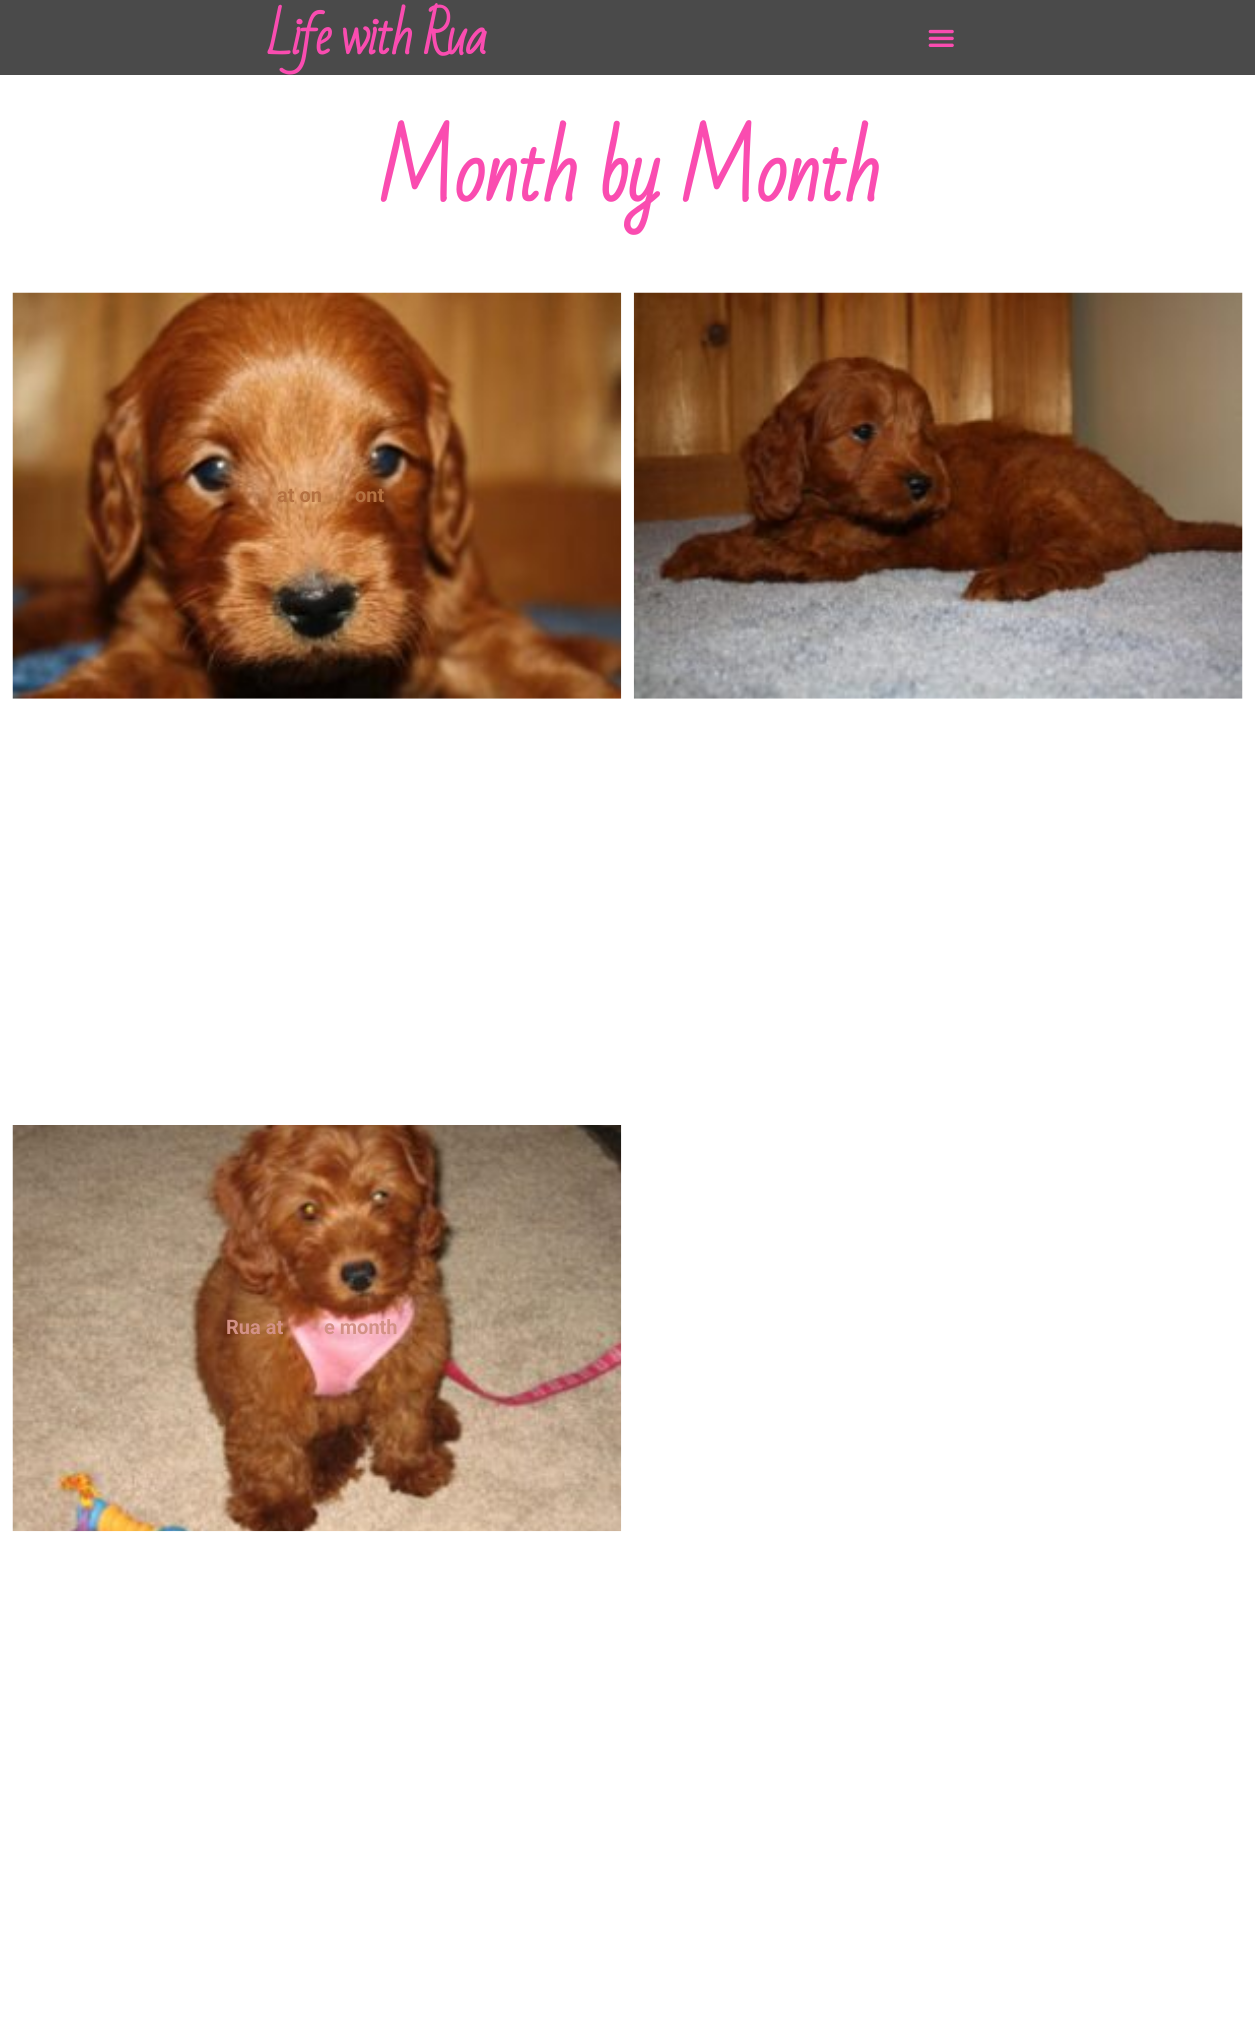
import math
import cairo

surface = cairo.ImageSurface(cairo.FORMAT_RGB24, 1255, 2041)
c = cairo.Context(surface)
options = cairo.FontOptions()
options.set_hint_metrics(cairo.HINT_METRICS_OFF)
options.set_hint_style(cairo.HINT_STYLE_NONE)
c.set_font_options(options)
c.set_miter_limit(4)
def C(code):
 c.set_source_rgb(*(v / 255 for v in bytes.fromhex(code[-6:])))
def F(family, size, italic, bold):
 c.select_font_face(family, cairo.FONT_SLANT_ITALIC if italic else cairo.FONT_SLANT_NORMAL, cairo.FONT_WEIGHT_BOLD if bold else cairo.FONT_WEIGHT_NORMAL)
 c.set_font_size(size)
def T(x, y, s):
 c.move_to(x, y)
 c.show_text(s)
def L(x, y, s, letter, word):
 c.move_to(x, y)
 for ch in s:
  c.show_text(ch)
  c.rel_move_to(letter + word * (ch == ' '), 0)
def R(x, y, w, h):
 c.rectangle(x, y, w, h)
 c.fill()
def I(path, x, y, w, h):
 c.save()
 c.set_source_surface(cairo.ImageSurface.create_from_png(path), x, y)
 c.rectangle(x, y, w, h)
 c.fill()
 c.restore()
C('ffffff')
c.paint()
C('4a4a4a')
R(0,0,1255,75)
F('Bad Script',50,0,1)
C('fa4cb0')
L(266,54,'Life with Rua',-1.9,0)
I('1.png',928,29,26,18)
F('Bad Script',81.25,0,1)
L(376,201,'Month by Month',-1.9,0)
I('2.png',12,292,610,407)
F('Roboto',20,0,1)
C('b57141')
T(277,502,'at on')
T(355,502,'ont')
I('3.png',633,292,610,407)
I('4.png',12,1125,610,407)
C('d39186')
T(226,1334,'Rua at')
T(324,1334,'e month')
surface.write_to_png('o.png')
